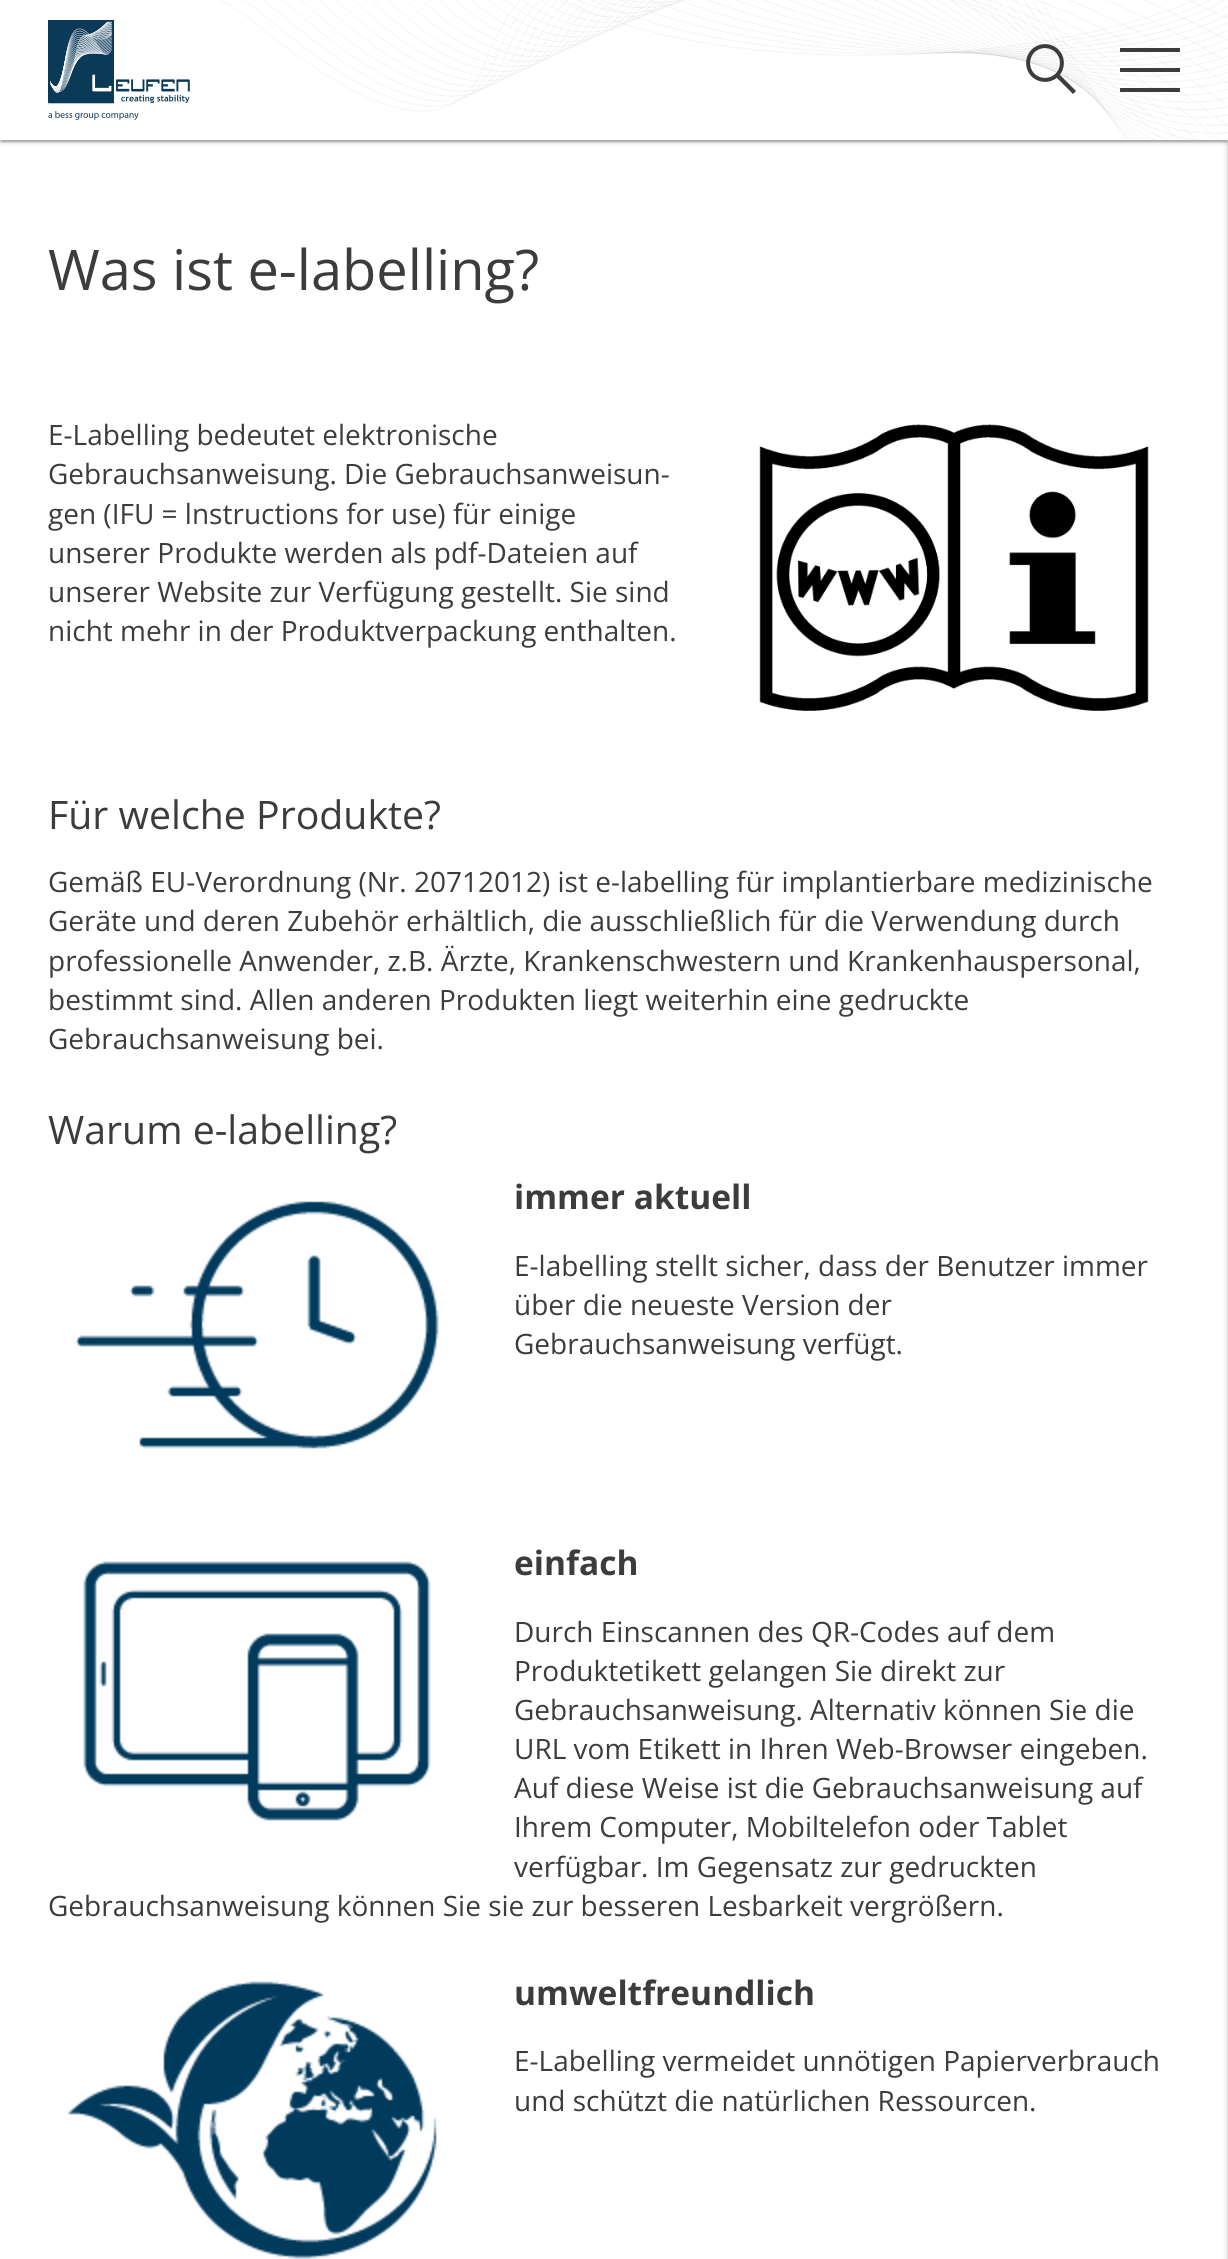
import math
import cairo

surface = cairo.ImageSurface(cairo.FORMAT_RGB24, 1228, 2259)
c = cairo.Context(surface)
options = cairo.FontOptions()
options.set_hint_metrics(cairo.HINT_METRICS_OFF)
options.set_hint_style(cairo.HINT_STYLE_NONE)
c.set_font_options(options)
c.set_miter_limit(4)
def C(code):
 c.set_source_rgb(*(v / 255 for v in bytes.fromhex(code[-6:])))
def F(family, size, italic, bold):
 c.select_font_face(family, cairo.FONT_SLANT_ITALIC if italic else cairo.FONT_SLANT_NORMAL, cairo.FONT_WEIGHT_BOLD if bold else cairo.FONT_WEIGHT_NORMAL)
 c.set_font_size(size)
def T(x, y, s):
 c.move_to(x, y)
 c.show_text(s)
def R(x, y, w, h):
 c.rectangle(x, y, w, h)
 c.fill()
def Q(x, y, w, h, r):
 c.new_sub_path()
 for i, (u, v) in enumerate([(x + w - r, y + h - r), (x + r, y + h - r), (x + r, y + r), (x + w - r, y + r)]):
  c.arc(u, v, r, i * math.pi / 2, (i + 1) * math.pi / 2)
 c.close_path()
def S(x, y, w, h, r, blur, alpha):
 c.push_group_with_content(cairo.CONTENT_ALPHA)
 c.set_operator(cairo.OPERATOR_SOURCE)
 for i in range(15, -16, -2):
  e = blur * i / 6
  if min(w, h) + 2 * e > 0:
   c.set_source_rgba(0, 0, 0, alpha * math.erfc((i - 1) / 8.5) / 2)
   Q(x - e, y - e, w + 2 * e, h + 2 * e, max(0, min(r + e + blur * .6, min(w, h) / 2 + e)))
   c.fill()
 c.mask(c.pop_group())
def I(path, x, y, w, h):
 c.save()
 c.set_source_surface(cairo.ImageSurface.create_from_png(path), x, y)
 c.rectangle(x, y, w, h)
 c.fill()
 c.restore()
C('ffffff')
c.paint()
c.save()
c.rectangle(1,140,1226,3)
c.clip()
C('000000')
S(2,6,1224,136,0,1,.12)
c.restore()
c.save()
c.rectangle(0,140,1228,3)
c.clip()
C('000000')
S(0,2,1228,140,0,1,.14)
c.restore()
c.save()
c.rectangle(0,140,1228,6)
c.clip()
C('000000')
S(0,2,1228,140,0,3,.2)
c.restore()
I('1.png',220,0,1008,140)
I('2.png',48,20,142,100)
c.new_path()
c.move_to(1033,51)
c.curve_to(1039.5,44.5,1050.5,44.5,1057,51)
c.curve_to(1063.5,57.5,1063.5,68.5,1057,75)
c.curve_to(1050.5,81.5,1039.5,81.5,1033,75)
c.curve_to(1026.5,68.5,1026.5,57.5,1033,51)
c.close_path()
C('3c3c3c')
c.set_line_width(4)
c.stroke()
c.new_path()
c.move_to(1059,74)
c.line_to(1076,91)
c.line_to(1073,94)
c.line_to(1056,77)
c.close_path()
c.fill()
R(1120,68,60,4)
R(1120,48,60,4)
R(1120,88,60,4)
C('000000')
S(1228,142,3,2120,0,1,.14)
S(1228,142,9,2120,0,3,.2)
F('Open Sans',56,0,0)
C('3c3c3c')
T(48,290,'Was ist e-labelling?')
F('Open Sans',28,0,0)
T(48,445,'E-Labelling bedeutet elektronische')
T(48,484,'Gebrauchsanweisung. Die Gebrauchsanweisun-')
T(48,524,'gen (IFU = lnstructions for use) für einige')
T(48,563,'unserer Produkte werden als pdf-Dateien auf')
T(48,602,'unserer Website zur Verfügung gestellt. Sie sind')
T(48,641,'nicht mehr in der Produktverpackung enthalten.')
I('3.png',759,424,390,287)
F('Open Sans',39.25,0,0)
T(48,829,'Für welche Produkte?')
F('Open Sans',28,0,0)
T(48,892,'Gemäß EU-Verordnung (Nr. 20712012) ist e-labelling für implantierbare medizinische')
T(48,931,'Geräte und deren Zubehör erhältlich, die ausschließlich für die Verwendung durch')
T(48,971,'professionelle Anwender, z.B. Ärzte, Krankenschwestern und Krankenhauspersonal,')
T(48,1010,'bestimmt sind. Allen anderen Produkten liegt weiterhin eine gedruckte')
T(48,1049,'Gebrauchsanweisung bei.')
F('Open Sans',39.25,0,0)
T(48,1144,'Warum e-labelling?')
I('4.png',75,1201,364,248)
F('Open Sans',33.5,0,1)
T(514,1209,'immer aktuell')
F('Open Sans',28,0,0)
T(514,1276,'E-labelling stellt sicher, dass der Benutzer immer')
T(514,1315,'über die neueste Version der')
T(514,1354,'Gebrauchsanweisung verfügt.')
F('Open Sans',33.5,0,1)
T(514,1575,'einfach')
F('Open Sans',28,0,0)
T(514,1642,'Durch Einscannen des QR-Codes auf dem')
T(514,1681,'Produktetikett gelangen Sie direkt zur')
T(514,1720,'Gebrauchsanweisung. Alternativ können Sie die')
T(514,1759,'URL vom Etikett in Ihren Web-Browser eingeben.')
T(514,1798,'Auf diese Weise ist die Gebrauchsanweisung auf')
T(514,1837,'Ihrem Computer, Mobiltelefon oder Tablet')
T(514,1877,'verfügbar. Im Gegensatz zur gedruckten')
T(48,1916,'Gebrauchsanweisung können Sie sie zur besseren Lesbarkeit vergrößern.')
I('5.png',83,1561,348,260)
I('6.png',67,1981,370,278)
F('Open Sans',33.5,0,1)
T(514,2005,'umweltfreundlich')
F('Open Sans',28,0,0)
T(514,2071,'E-Labelling vermeidet unnötigen Papierverbrauch')
T(514,2111,'und schützt die natürlichen Ressourcen.')
surface.write_to_png('o.png')
